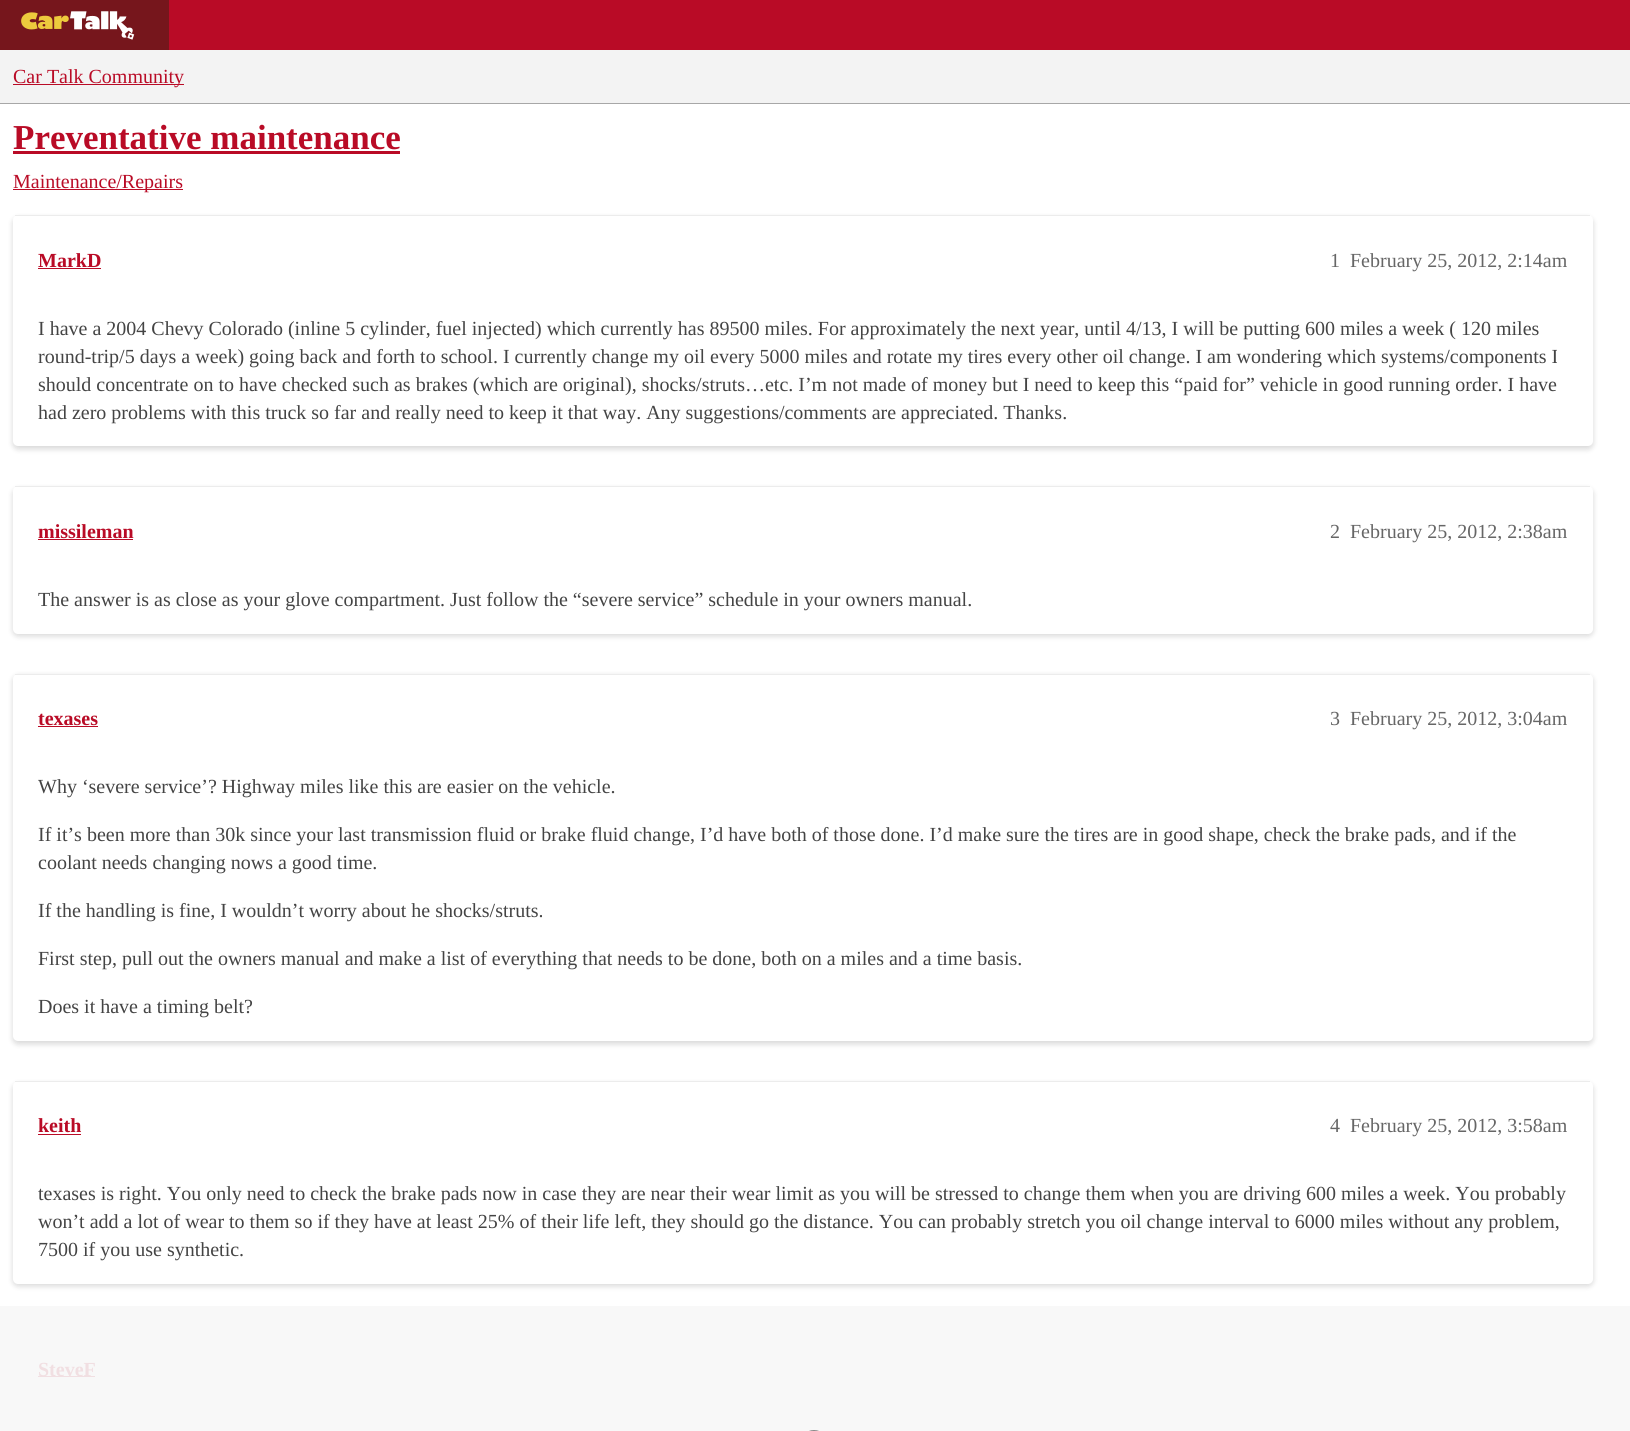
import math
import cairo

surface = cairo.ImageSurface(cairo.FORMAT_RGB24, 1630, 1431)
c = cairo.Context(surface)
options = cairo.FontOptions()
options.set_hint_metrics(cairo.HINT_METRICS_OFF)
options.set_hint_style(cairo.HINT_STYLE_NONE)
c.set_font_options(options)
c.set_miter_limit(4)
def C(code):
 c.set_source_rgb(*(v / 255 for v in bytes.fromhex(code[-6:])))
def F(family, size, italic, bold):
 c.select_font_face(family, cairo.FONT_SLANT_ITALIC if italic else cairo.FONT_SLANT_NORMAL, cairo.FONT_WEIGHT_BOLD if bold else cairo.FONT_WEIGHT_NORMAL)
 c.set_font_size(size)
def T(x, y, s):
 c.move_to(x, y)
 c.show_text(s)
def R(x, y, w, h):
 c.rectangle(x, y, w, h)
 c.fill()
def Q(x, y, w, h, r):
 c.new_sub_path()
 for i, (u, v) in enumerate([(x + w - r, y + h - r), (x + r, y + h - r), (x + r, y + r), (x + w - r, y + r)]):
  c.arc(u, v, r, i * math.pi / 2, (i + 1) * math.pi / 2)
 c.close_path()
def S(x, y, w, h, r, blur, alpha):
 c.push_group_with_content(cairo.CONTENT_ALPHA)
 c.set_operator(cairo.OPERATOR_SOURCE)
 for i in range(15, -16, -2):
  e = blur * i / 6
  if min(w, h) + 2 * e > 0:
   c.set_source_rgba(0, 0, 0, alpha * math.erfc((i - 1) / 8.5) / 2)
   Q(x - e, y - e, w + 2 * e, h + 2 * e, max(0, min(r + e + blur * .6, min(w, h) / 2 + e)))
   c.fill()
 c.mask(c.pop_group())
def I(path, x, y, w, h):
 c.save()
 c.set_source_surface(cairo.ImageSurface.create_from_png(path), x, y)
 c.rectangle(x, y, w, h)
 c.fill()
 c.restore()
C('ffffff')
c.paint()
C('f8f8f8')
R(0,1306,1630,125)
C('b90b26')
R(169,0,1461,50)
C('76161c')
R(0,0,169,50)
I('1.png',21,11,114,29)
C('f3f3f3')
R(0,50,1630,53)
C('a7a7a7')
R(0,103,1630,1)
C('b90b26')
R(13,84,171,1)
F('Liberation Serif',20,0,0)
T(13,83,'Car Talk Community')
F('Liberation Serif',35,0,1)
T(13,149,'Preventative maintenance')
R(13,151,387,3)
R(13,189,170,1)
F('Liberation Serif',20,0,0)
T(13,188,'Maintenance/Repairs')
C('000000')
S(13,218,1580,231,5,3,.16)
C('ffffff')
Q(13,215,1580,231,5)
c.fill()
C('ececec')
R(15,215,1575,1)
F('Liberation Serif',20,0,1)
C('b90b26')
T(38,267,'MarkD')
R(38,268,63,1)
F('Liberation Serif',20,0,0)
C('666666')
T(1330,267,'1')
T(1350,267,'February 25, 2012, 2:14am')
C('444444')
T(38,335,'I have a 2004 Chevy Colorado (inline 5 cylinder, fuel injected) which currently has 89500 miles. For approximately the next year, until 4/13, I will be putting 600 miles a week ( 120 miles')
T(38,363,'round-trip/5 days a week) going back and forth to school. I currently change my oil every 5000 miles and rotate my tires every other oil change. I am wondering which systems/components I')
T(38,391,'should concentrate on to have checked such as brakes (which are original), shocks/struts…etc. I’m not made of money but I need to keep this “paid for” vehicle in good running order. I have')
T(38,419,'had zero problems with this truck so far and really need to keep it that way. Any suggestions/comments are appreciated. Thanks.')
C('000000')
S(13,489,1580,147,5,3,.16)
C('ffffff')
Q(13,486,1580,148,5)
c.fill()
C('ececec')
R(15,486,1575,1)
F('Liberation Serif',20,0,1)
C('b90b26')
T(38,538,'missileman')
R(38,539,95,1)
F('Liberation Serif',20,0,0)
C('666666')
T(1330,538,'2')
T(1350,538,'February 25, 2012, 2:38am')
c.save()
c.rectangle(38,566,1530,68)
c.clip()
C('444444')
T(38,606,'The answer is as close as your glove compartment. Just follow the “severe service” schedule in your owners manual.')
c.restore()
C('000000')
S(13,676,1580,368,5,3,.16)
C('ffffff')
Q(13,674,1580,367,5)
c.fill()
C('ececec')
R(15,674,1575,1)
F('Liberation Serif',20,0,1)
C('b90b26')
T(38,725,'texases')
R(38,726,60,1)
F('Liberation Serif',20,0,0)
C('666666')
T(1330,725,'3')
T(1350,725,'February 25, 2012, 3:04am')
C('444444')
T(38,793,'Why ‘severe service’? Highway miles like this are easier on the vehicle.')
T(38,841,'If it’s been more than 30k since your last transmission fluid or brake fluid change, I’d have both of those done. I’d make sure the tires are in good shape, check the brake pads, and if the')
T(38,869,'coolant needs changing nows a good time.')
T(38,917,'If the handling is fine, I wouldn’t worry about he shocks/struts.')
T(38,965,'First step, pull out the owners manual and make a list of everything that needs to be done, both on a miles and a time basis.')
T(38,1013,'Does it have a timing belt?')
C('000000')
S(13,1084,1580,202,5,3,.16)
C('ffffff')
Q(13,1081,1580,203,5)
c.fill()
C('ececec')
R(15,1081,1575,1)
F('Liberation Serif',20,0,1)
C('b90b26')
T(38,1132,'keith')
R(38,1134,43,1)
F('Liberation Serif',20,0,0)
C('666666')
T(1330,1132,'4')
T(1350,1132,'February 25, 2012, 3:58am')
C('444444')
T(38,1200,'texases is right. You only need to check the brake pads now in case they are near their wear limit as you will be stressed to change them when you are driving 600 miles a week. You probably')
T(38,1228,'won’t add a lot of wear to them so if they have at least 25% of their life left, they should go the distance. You can probably stretch you oil change interval to 6000 miles without any problem,')
T(38,1256,'7500 if you use synthetic.')
C('f1dfe2')
R(38,1376,57,1)
F('Liberation Serif',20,0,1)
T(38,1376,'SteveF')
Q(800.5,1430.5,27,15,13.5)
C('888888')
c.set_line_width(1)
c.stroke()
surface.write_to_png('o.png')
